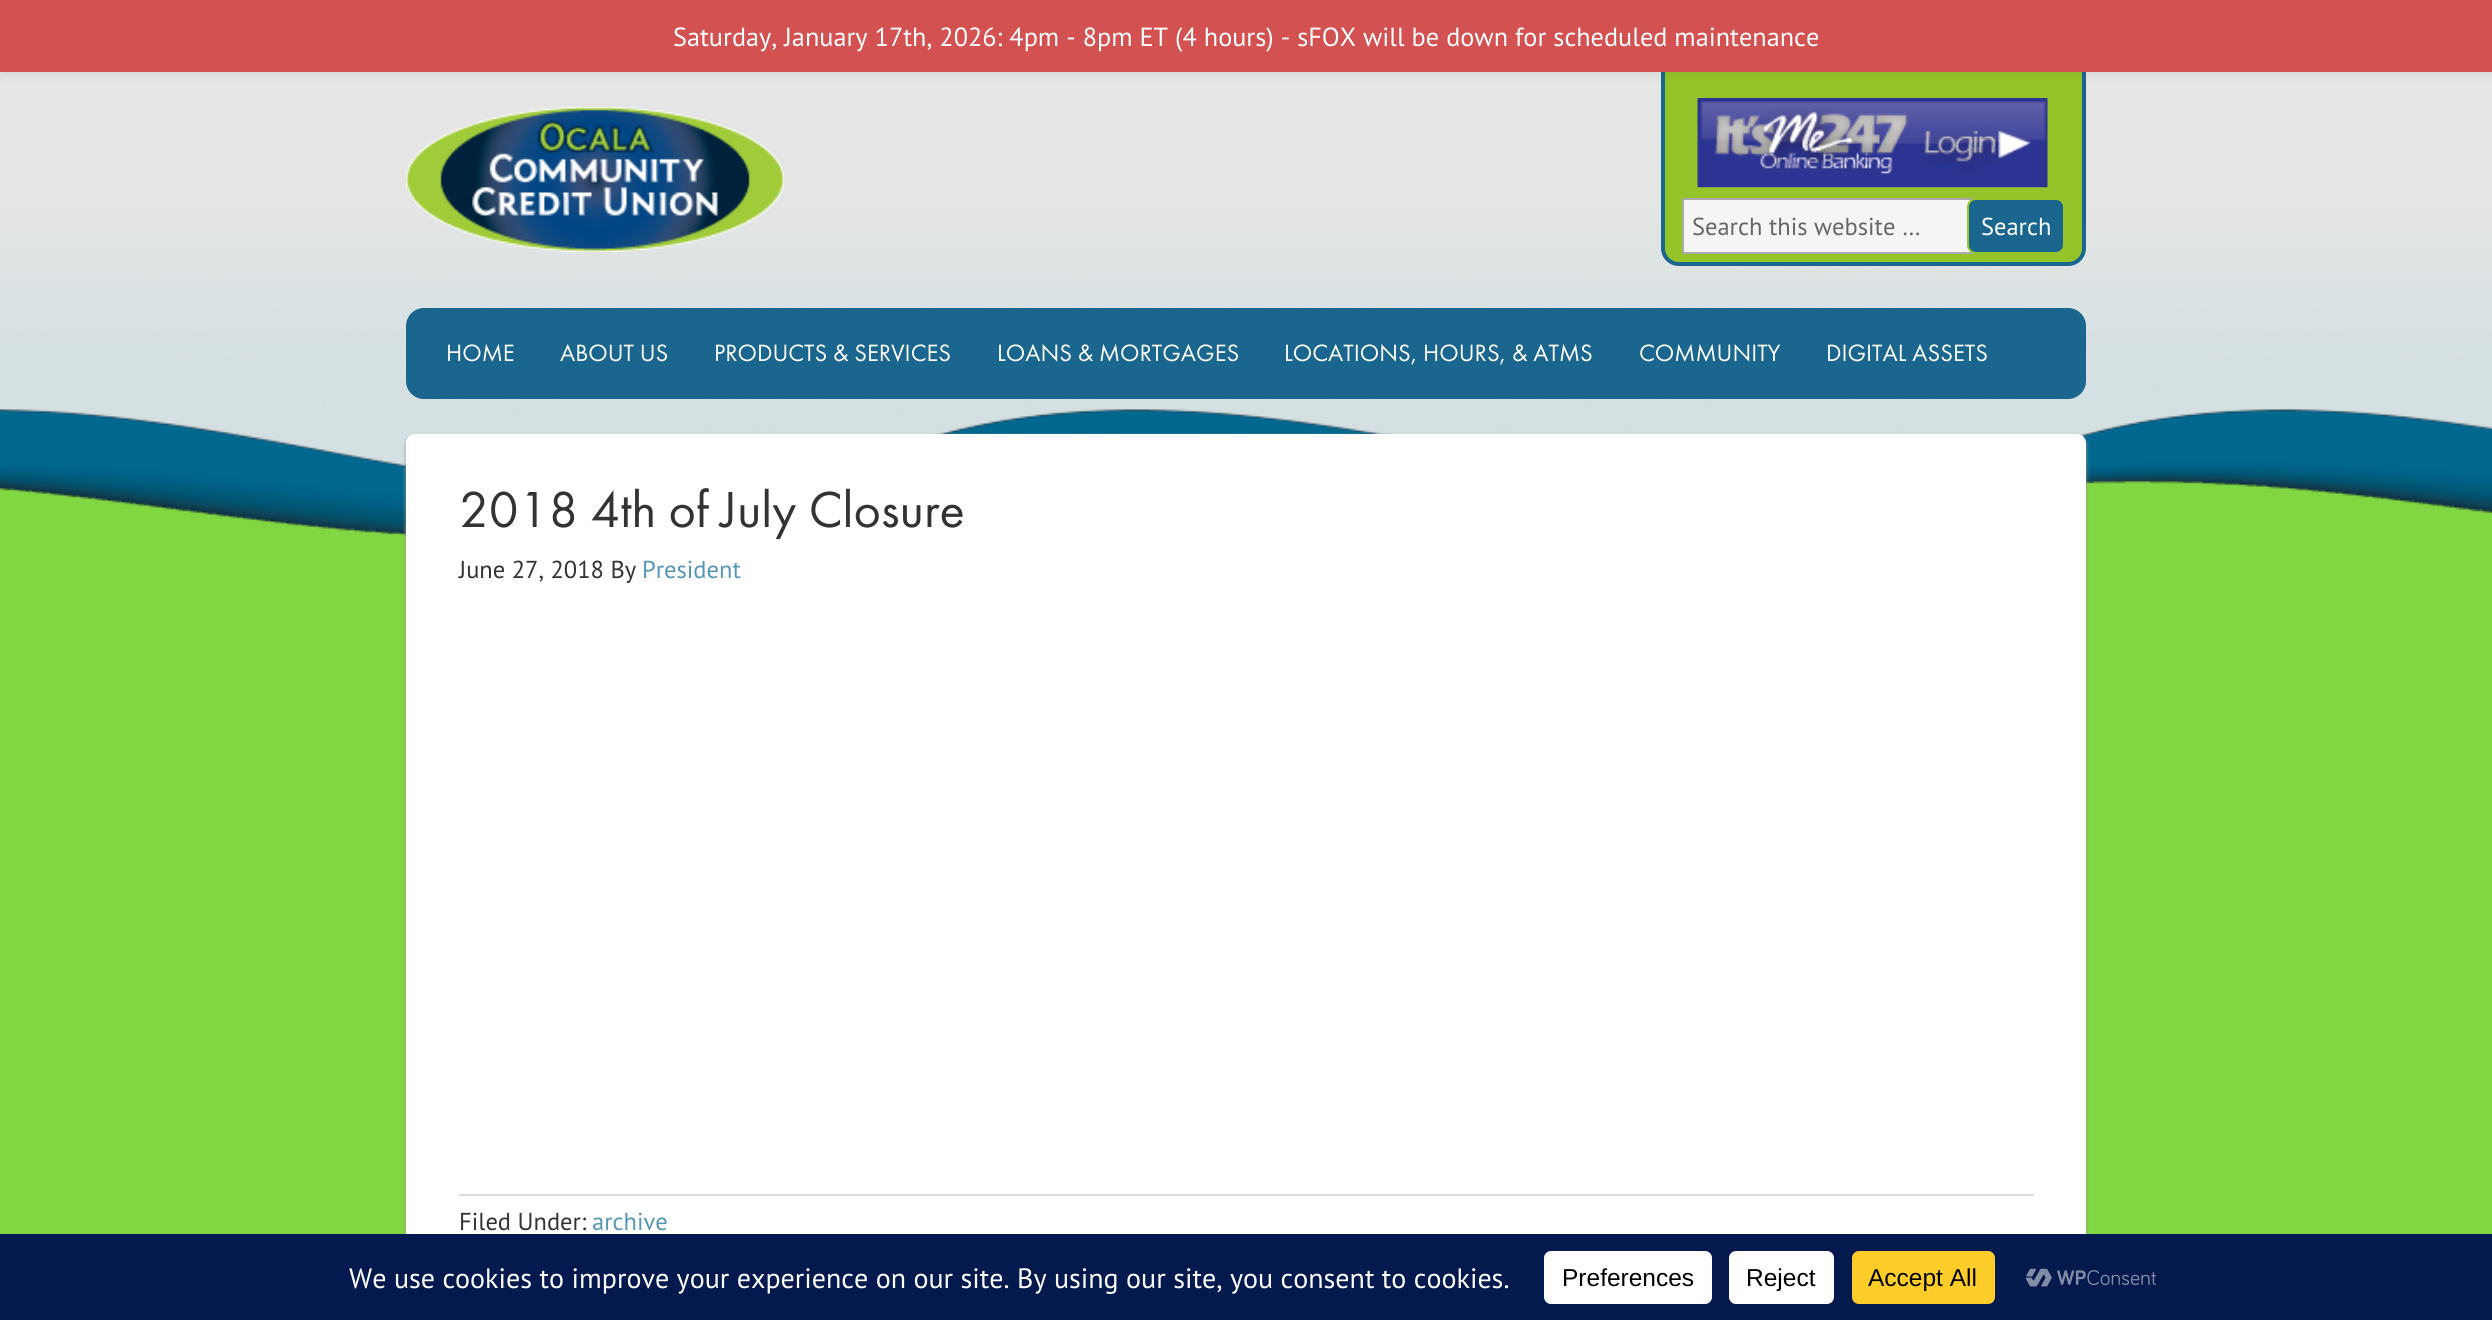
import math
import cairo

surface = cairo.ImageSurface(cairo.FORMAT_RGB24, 2492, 1320)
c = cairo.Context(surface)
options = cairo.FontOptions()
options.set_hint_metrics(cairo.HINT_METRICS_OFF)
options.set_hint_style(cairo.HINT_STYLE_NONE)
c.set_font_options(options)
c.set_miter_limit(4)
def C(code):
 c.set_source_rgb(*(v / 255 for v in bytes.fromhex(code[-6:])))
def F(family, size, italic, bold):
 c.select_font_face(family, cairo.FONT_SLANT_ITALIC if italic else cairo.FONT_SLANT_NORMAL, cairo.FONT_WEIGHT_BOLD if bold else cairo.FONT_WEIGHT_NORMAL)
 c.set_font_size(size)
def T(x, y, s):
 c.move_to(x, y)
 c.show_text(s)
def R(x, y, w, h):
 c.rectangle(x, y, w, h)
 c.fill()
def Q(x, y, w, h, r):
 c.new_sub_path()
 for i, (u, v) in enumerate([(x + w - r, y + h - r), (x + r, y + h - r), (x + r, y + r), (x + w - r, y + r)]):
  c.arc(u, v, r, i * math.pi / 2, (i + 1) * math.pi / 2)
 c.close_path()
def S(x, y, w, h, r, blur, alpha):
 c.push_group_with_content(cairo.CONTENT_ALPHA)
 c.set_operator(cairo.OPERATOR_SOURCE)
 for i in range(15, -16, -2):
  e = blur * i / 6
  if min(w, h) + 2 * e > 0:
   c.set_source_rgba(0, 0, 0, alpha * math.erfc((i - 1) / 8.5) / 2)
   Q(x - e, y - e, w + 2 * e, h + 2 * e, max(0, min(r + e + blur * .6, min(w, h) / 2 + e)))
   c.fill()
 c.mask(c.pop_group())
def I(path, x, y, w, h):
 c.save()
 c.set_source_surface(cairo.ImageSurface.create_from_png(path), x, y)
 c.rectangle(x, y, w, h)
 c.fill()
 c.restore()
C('81d742')
c.paint()
I('1.png',0,72,2492,464)
C('94c42a')
c.new_path()
c.move_to(1663,70)
c.line_to(2084,70)
c.line_to(2084,248)
c.curve_to(2084,257,2077,264,2068,264)
c.line_to(1679,264)
c.curve_to(1670,264,1663,257,1663,248)
c.close_path()
c.fill_preserve()
C('1a668f')
c.set_line_width(4)
c.stroke()
C('000000')
S(0,5,2492,72,0,3.5,.05)
C('d35151')
R(0,0,2492,72)
F('PT Sans',26.25,0,0)
C('ffffff')
T(673,46,'Saturday, January 17th, 2026: 4pm - 8pm ET (4 hours) - sFOX will be down for scheduled maintenance')
I('2.png',406,106,378,146)
I('3.png',1697,98,351,90)
C('f5f5f5')
R(1684,200,287,52)
c.rectangle(1683,199,295,54)
C('aaaaaa')
c.set_line_width(2)
c.stroke()
F('PT Sans',24.5,0,0)
C('666666')
T(1692,235,'Search this website …')
C('1a668f')
Q(1968,199,96,54,8)
c.fill_preserve()
C('94c42a')
c.stroke()
C('ffffff')
T(1981,235,'Search')
C('1a668f')
Q(406,308,1680,91,18)
c.fill()
F('Futura PT',24.5,0,0)
C('ffffff')
T(446,361,'HOME')
T(560,361,'ABOUT US')
T(714,361,'PRODUCTS & SERVICES')
T(997,361,'LOANS & MORTGAGES')
T(1284,361,'LOCATIONS, HOURS, & ATMS')
T(1639,361,'COMMUNITY')
T(1826,361,'DIGITAL ASSETS')
C('999999')
S(406,436,1680,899,9,2,1)
C('ffffff')
Q(406,434,1680,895,9)
c.fill()
F('Futura PT',52.5,0,0)
C('333333')
T(459,527,'2018 4th of July Closure')
F('PT Sans',24.5,0,0)
T(459,578,'June 27, 2018 By')
C('5397b4')
T(642,578,'President')
C('dddddd')
R(459,1194,1575,2)
C('333333')
T(459,1230,'Filed Under:')
C('5397b4')
T(592,1230,'archive')
C('04194e')
R(0,1234,2492,86)
F('PT Sans',28,0,0)
C('ffffff')
T(349,1288,'We use cookies to improve your experience on our site. By using our site, you consent to cookies.')
Q(1544,1251,168,53,7)
c.fill()
F('Liberation Sans',24.5,0,0)
C('000000')
T(1562,1286,'Preferences')
C('ffffff')
Q(1729,1251,105,53,7)
c.fill()
C('000000')
T(1746,1286,'Reject')
C('ffcd2a')
Q(1852,1251,143,53,7)
c.fill()
C('000000')
T(1868,1286,'Accept All')
I('4.png',2025,1268,131,19)
surface.write_to_png('o.png')
